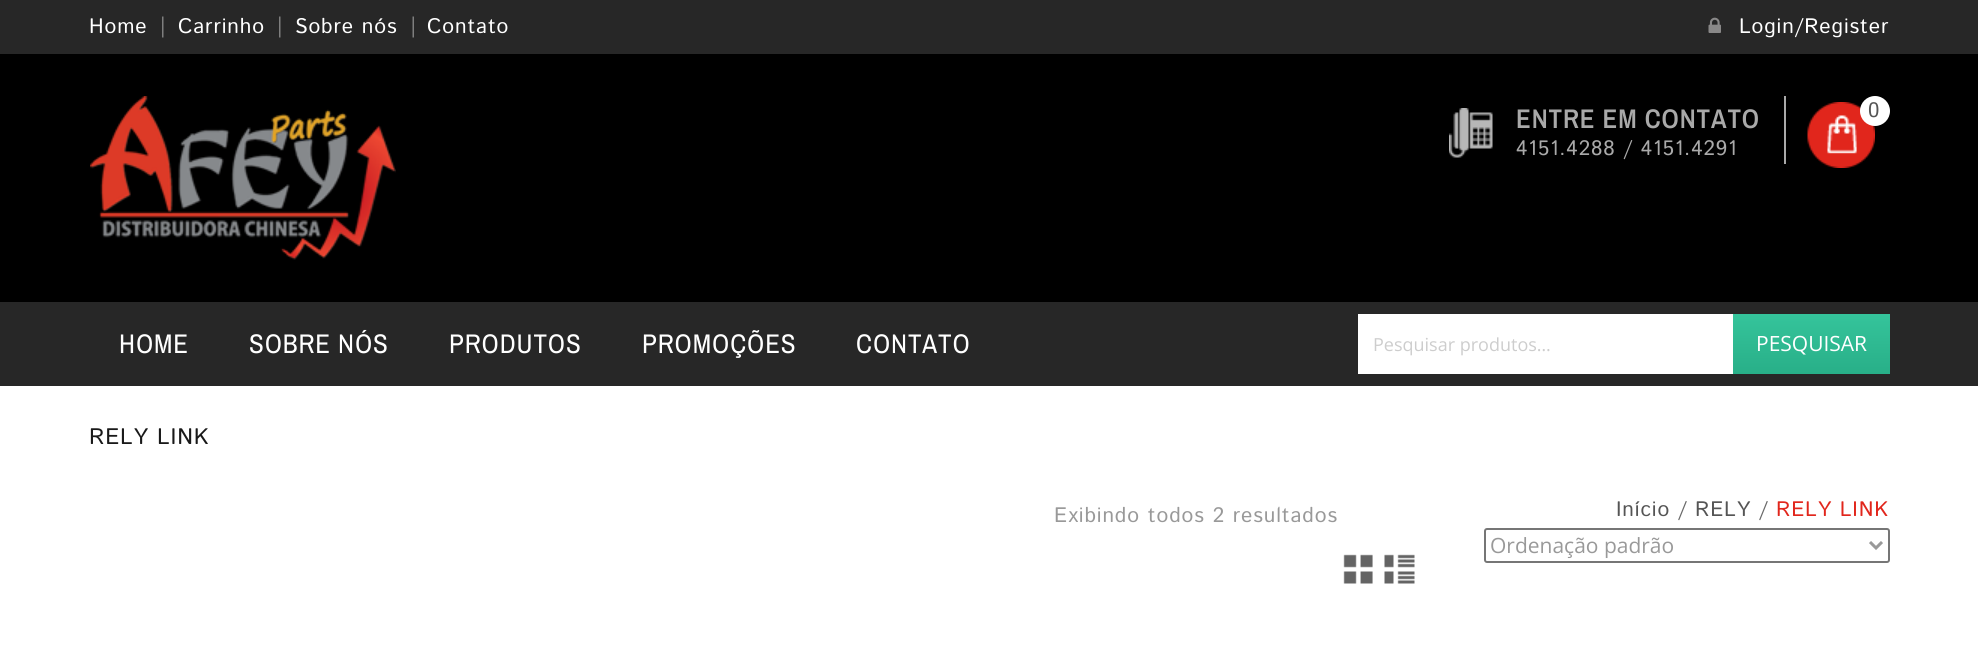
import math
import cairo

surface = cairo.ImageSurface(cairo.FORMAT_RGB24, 1978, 656)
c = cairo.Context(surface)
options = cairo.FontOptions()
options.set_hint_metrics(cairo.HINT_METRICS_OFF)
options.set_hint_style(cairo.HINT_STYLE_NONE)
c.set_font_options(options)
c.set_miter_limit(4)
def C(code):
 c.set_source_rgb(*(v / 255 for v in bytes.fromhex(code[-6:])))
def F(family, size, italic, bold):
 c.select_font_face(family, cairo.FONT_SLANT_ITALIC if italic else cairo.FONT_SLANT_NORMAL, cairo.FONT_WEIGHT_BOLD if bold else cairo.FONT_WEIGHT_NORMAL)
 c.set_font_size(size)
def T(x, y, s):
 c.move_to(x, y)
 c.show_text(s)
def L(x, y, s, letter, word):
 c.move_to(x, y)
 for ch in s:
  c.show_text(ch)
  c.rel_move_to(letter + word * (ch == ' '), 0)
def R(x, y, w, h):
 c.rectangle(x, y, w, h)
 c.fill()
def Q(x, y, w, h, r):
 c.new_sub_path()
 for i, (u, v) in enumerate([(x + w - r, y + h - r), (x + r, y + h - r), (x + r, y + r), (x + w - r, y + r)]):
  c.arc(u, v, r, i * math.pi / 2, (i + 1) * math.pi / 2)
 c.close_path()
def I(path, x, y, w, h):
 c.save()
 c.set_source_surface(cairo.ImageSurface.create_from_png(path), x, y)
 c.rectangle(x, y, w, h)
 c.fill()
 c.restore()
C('ffffff')
c.paint()
C('000000')
R(0,54,1978,248)
C('272727')
R(0,0,1978,54)
F('Istok Web',21,0,0)
C('ffffff')
L(89,33,'Home',.9,0)
I('1.png',162,16,2,22)
L(178,33,'Carrinho',.9,0)
I('1.png',279,16,2,22)
L(295,33,'Sobre nós',.9,0)
I('2.png',412,16,2,22)
L(427,33,'Contato',.9,0)
I('3.png',1708,17,13,16)
L(1739,33,'Login/Register',.9,0)
I('4.png',90,96,306,164)
C('a9a9a9')
R(1784,96,2,68)
I('5.png',1449,108,44,50)
F('Archivo Narrow SemiBold',27,0,0)
L(1516,128,'ENTRE EM CONTATO',.9,0)
F('Istok Web',21,0,0)
L(1516,155,'4151.4288 / 4151.4291',.9,0)
I('6.png',1807,102,68,66)
C('ffffff')
c.arc(1875,111,15,0,2 * math.pi)
c.fill()
C('555555')
L(1868,117,'0',.9,0)
C('272727')
R(0,302,1978,84)
F('Archivo Narrow',27,0,0)
C('ffffff')
L(119,353,'HOME',.9,0)
L(249,353,'SOBRE NÓS',.9,0)
L(449,353,'PRODUTOS',.9,0)
L(642,353,'PROMOÇÕES',.9,0)
L(856,353,'CONTATO',.9,0)
R(1358,314,375,60)
F('Open Sans',18,0,0)
C('cdcdcd')
T(1373,351,'Pesquisar produtos…')
gradient = cairo.LinearGradient(1811,314,1811,374)
gradient.add_color_stop_rgba(0,0.208,0.769,0.608,1)
gradient.add_color_stop_rgba(1,0.157,0.686,0.533,1)
c.set_source(gradient)
R(1733,314,157,60)
F('Open Sans',21,0,0)
C('ffffff')
T(1756,351,'PESQUISAR')
F('Istok Web',22.5,0,0)
C('191919')
L(89,444,'RELY LINK',.9,0)
F('Istok Web',21,0,0)
C('999999')
L(1054,522,'Exibindo todos 2 resultados',.9,0)
C('555555')
L(1616,516,'Início',.9,0)
C('696969')
L(1678,516,'/',.9,0)
C('555555')
L(1695,516,'RELY',.9,0)
C('696969')
L(1759,516,'/',.9,0)
C('e1261c')
L(1776,516,'RELY LINK',.9,0)
Q(1485,529,404,33,2)
C('767676')
c.stroke()
c.new_path()
c.move_to(1870,542)
c.line_to(1876,548)
c.line_to(1882,542)
C('999999')
c.set_line_width(3)
c.stroke()
F('Open Sans',21,0,0)
T(1490,553,'Ordenação padrão')
I('7.png',1343,554,30,30)
I('8.png',1384,554,31,30)
surface.write_to_png('o.png')
